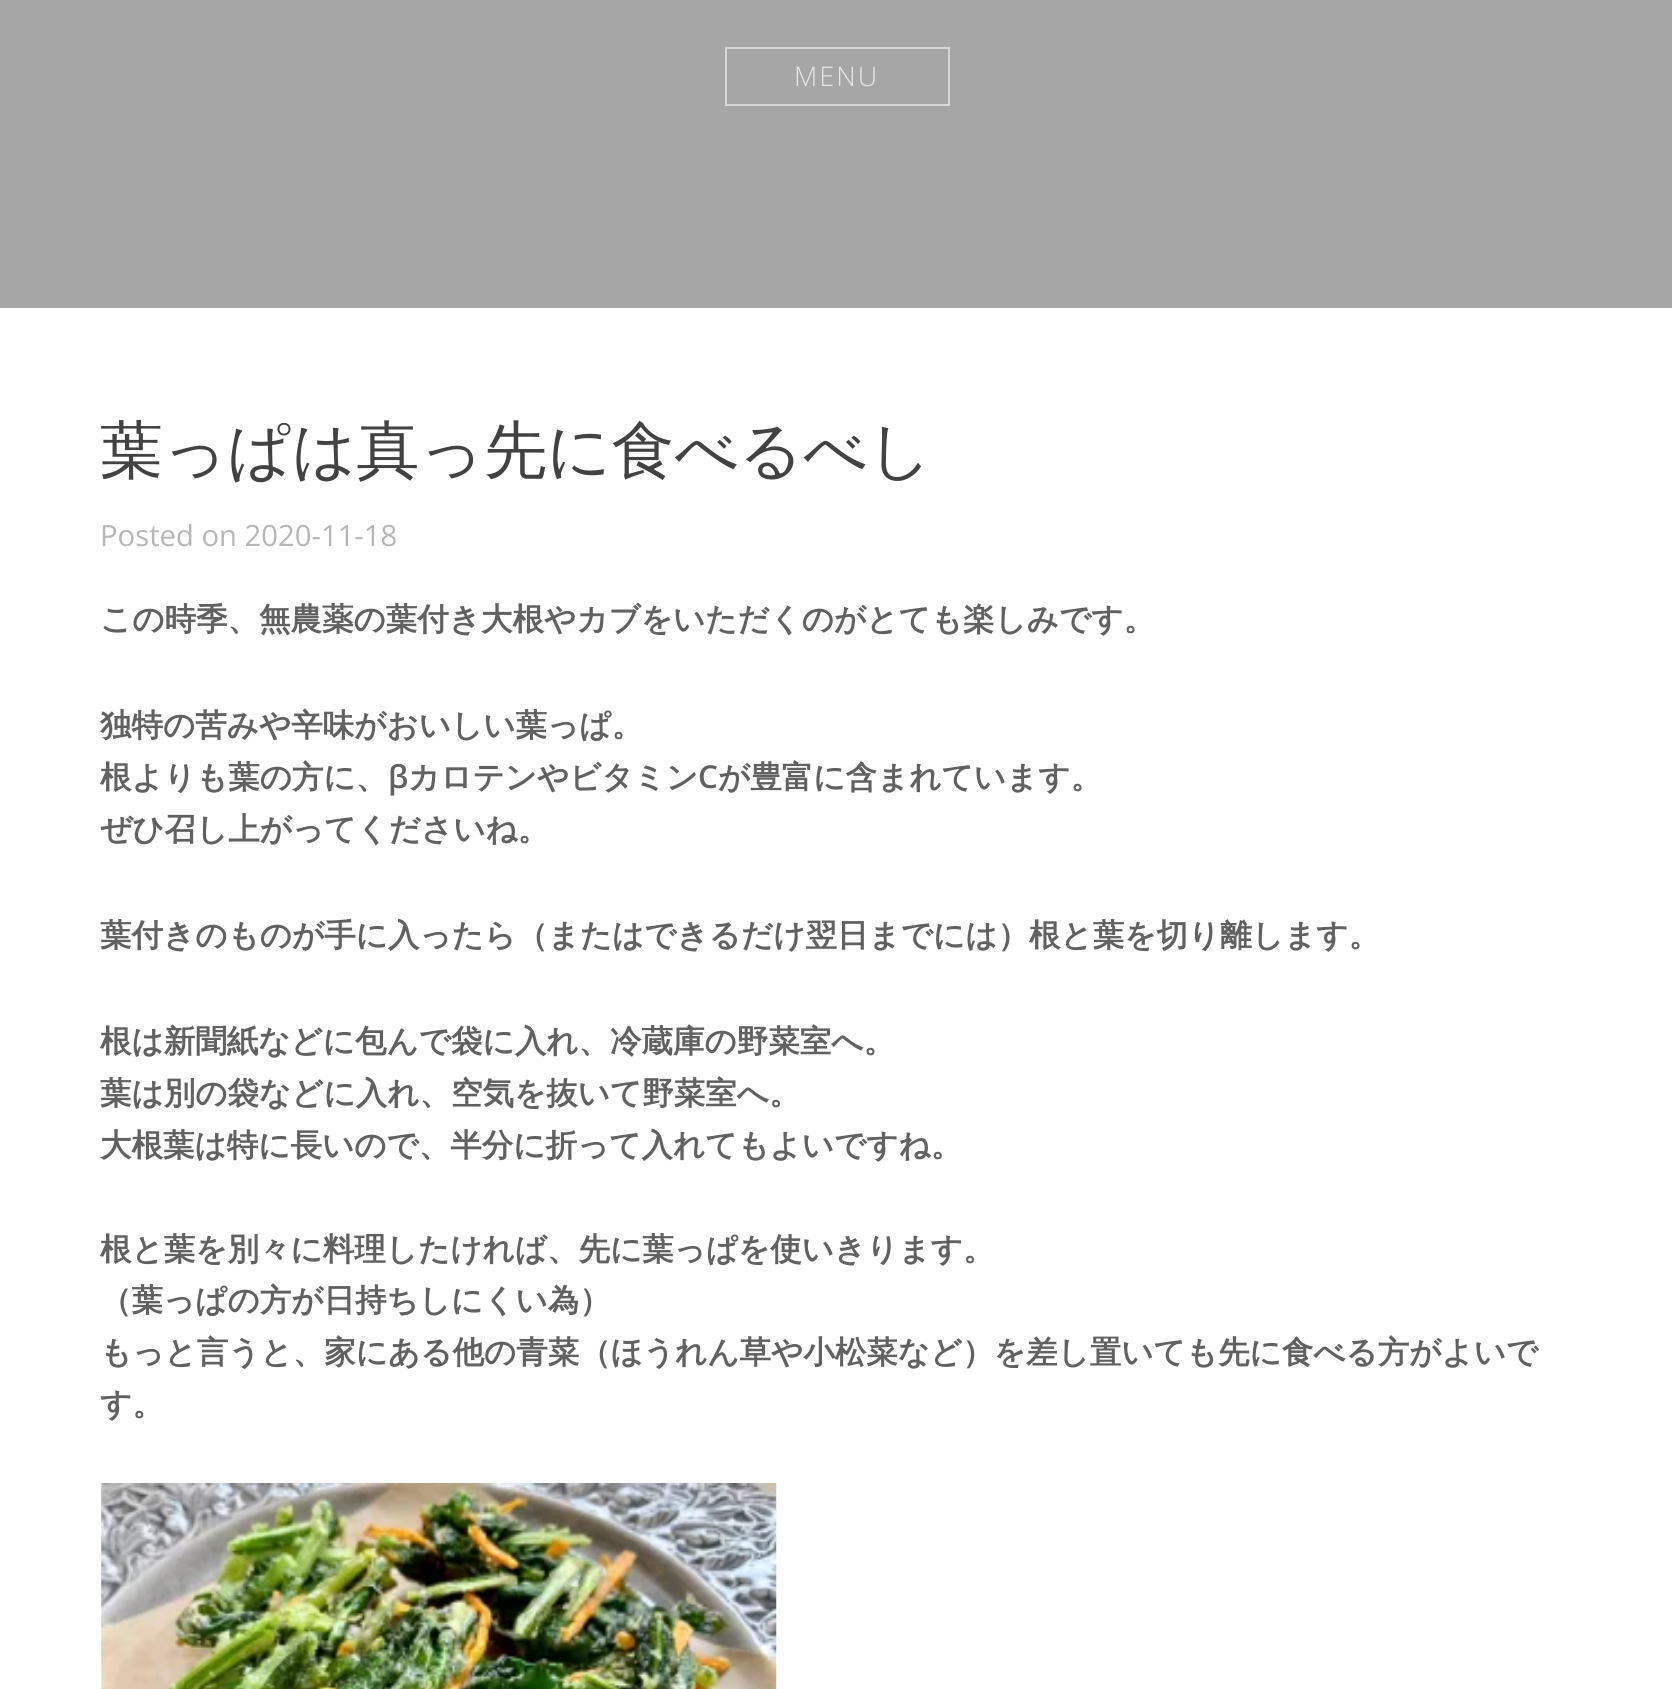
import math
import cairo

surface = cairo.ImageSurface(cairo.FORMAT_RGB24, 1672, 1689)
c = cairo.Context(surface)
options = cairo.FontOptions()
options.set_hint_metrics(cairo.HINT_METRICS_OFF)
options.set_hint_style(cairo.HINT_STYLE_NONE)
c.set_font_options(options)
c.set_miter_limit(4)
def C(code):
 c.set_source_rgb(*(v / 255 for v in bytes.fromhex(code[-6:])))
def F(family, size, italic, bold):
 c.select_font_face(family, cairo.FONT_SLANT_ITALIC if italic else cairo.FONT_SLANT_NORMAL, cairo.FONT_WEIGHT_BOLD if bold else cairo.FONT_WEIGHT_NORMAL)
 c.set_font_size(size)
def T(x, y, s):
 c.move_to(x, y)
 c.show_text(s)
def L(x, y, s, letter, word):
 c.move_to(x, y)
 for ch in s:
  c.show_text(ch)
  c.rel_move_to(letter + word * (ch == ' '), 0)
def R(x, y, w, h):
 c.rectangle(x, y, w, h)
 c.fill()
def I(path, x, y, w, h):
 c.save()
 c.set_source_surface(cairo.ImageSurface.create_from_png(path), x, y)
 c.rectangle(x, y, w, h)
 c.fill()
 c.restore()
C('ffffff')
c.paint()
C('a6a6a6')
R(0,0,1672,308)
c.rectangle(726,48,223,57)
C('d7d7d7')
c.stroke()
F('Open Sans Light',27,0,0)
C('e7e7e7')
L(794,86,'MENU',2,0)
F('WenQuanYi Zen Hei Medium',63,0,0)
C('424242')
T(100,472,'葉っぱは真っ先に食べるべし')
F('Open Sans',29.25,0,0)
C('b6b6b6')
T(100,546,'Posted on 2020-11-18')
F('WenQuanYi Zen Hei',31.5,0,1)
C('616161')
T(100,630,'この時季、無農薬の葉付き大根やカブをいただくのがとても楽しみです。')
T(100,736,'独特の苦みや辛味がおいしい葉っぱ。')
T(100,788,'根よりも葉の方に、')
F('Open Sans SemiBold',31.5,0,0)
T(388,788,'β')
F('WenQuanYi Zen Hei',31.5,0,1)
T(408,788,'カロテンやビタミン')
F('Open Sans SemiBold',31.5,0,0)
T(698,788,'C')
F('WenQuanYi Zen Hei',31.5,0,1)
T(718,788,'が豊富に含まれています。')
T(100,840,'ぜひ召し上がってくださいね。')
T(100,946,'葉付きのものが手に入ったら（またはできるだけ翌日までには）根と葉を切り離します。')
T(100,1052,'根は新聞紙などに包んで袋に入れ、冷蔵庫の野菜室へ。')
T(100,1104,'葉は別の袋などに入れ、空気を抜いて野菜室へ。')
T(100,1156,'大根葉は特に長いので、半分に折って入れてもよいですね。')
T(100,1260,'根と葉を別々に料理したければ、先に葉っぱを使いきります。')
T(100,1311,'（葉っぱの方が日持ちしにくい為）')
T(100,1363,'もっと言うと、家にある他の青菜（ほうれん草や小松菜など）を差し置いても先に食べる方がよいで')
T(100,1415,'す。')
I('1.png',101,1483,676,206)
surface.write_to_png('o.png')
